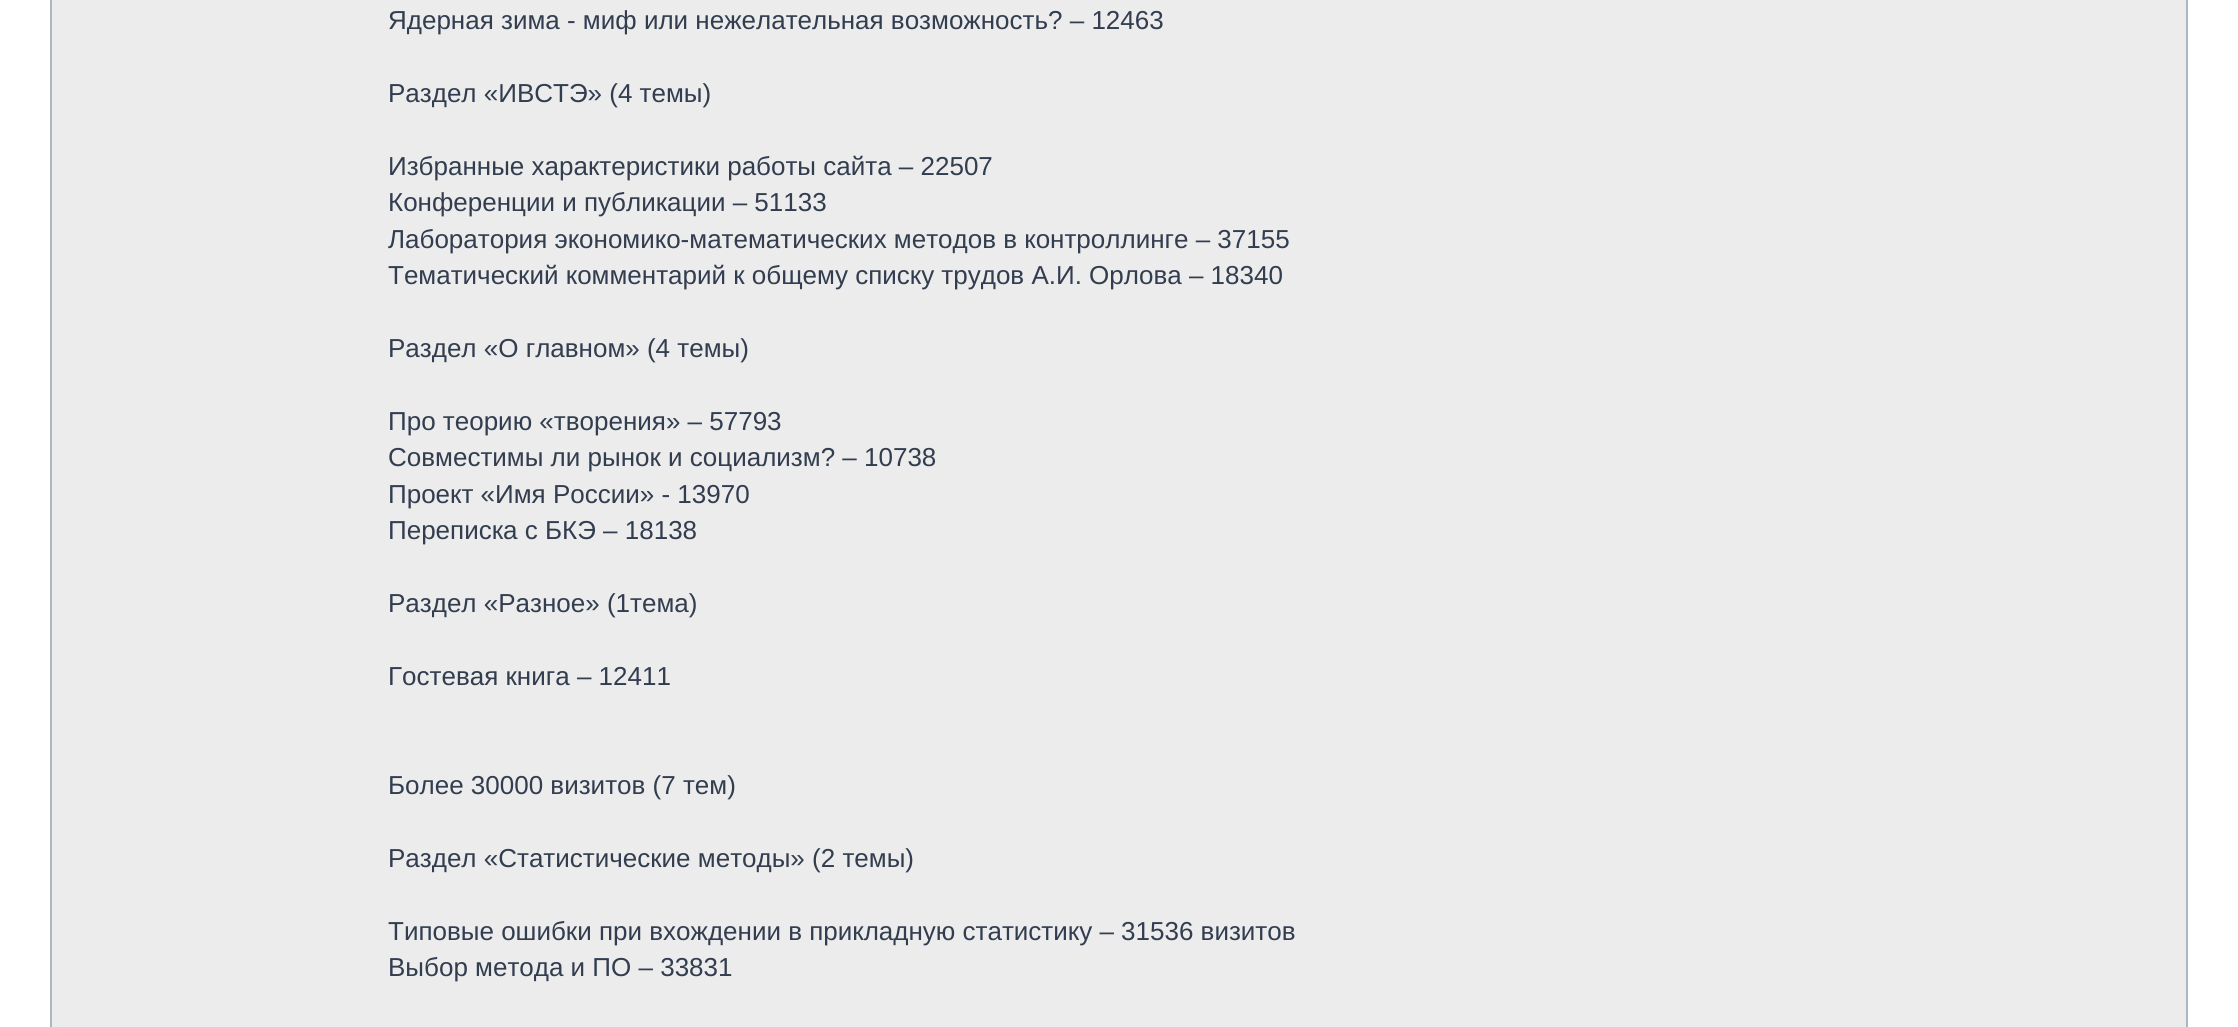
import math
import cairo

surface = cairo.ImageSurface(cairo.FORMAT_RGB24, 2238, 1027)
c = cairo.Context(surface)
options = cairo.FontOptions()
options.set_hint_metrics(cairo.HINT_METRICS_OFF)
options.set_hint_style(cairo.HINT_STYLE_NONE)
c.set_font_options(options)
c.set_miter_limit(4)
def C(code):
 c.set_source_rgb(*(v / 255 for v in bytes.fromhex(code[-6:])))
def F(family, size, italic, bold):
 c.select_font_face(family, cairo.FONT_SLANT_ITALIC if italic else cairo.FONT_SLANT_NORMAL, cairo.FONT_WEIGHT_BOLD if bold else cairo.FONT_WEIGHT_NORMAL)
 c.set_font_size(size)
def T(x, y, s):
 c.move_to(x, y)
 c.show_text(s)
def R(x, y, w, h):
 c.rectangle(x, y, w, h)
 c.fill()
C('ffffff')
c.paint()
C('a9b8c2')
R(50,0,2138,1027)
C('ececec')
R(52,0,2134,1027)
F('Liberation Sans',26,0,0)
C('323d4f')
T(388,29,'Ядерная зима - миф или нежелательная возможность? – 12463')
T(388,102,'Раздел «ИВСТЭ» (4 темы)')
T(388,175,'Избранные характеристики работы сайта – 22507')
T(388,211,'Конференции и публикации – 51133')
T(388,248,'Лаборатория экономико-математических методов в контроллинге – 37155')
T(388,284,'Тематический комментарий к общему списку трудов А.И. Орлова – 18340')
T(388,357,'Раздел «О главном» (4 темы)')
T(388,430,'Про теорию «творения» – 57793')
T(388,466,'Совместимы ли рынок и социализм? – 10738')
T(388,503,'Проект «Имя России» - 13970')
T(388,539,'Переписка с БКЭ – 18138')
T(388,612,'Раздел «Разное» (1тема)')
T(388,685,'Гостевая книга – 12411')
T(388,794,'Более 30000 визитов (7 тем)')
T(388,867,'Раздел «Статистические методы» (2 темы)')
T(388,940,'Типовые ошибки при вхождении в прикладную статистику – 31536 визитов')
T(388,976,'Выбор метода и ПО – 33831')
surface.write_to_png('o.png')
